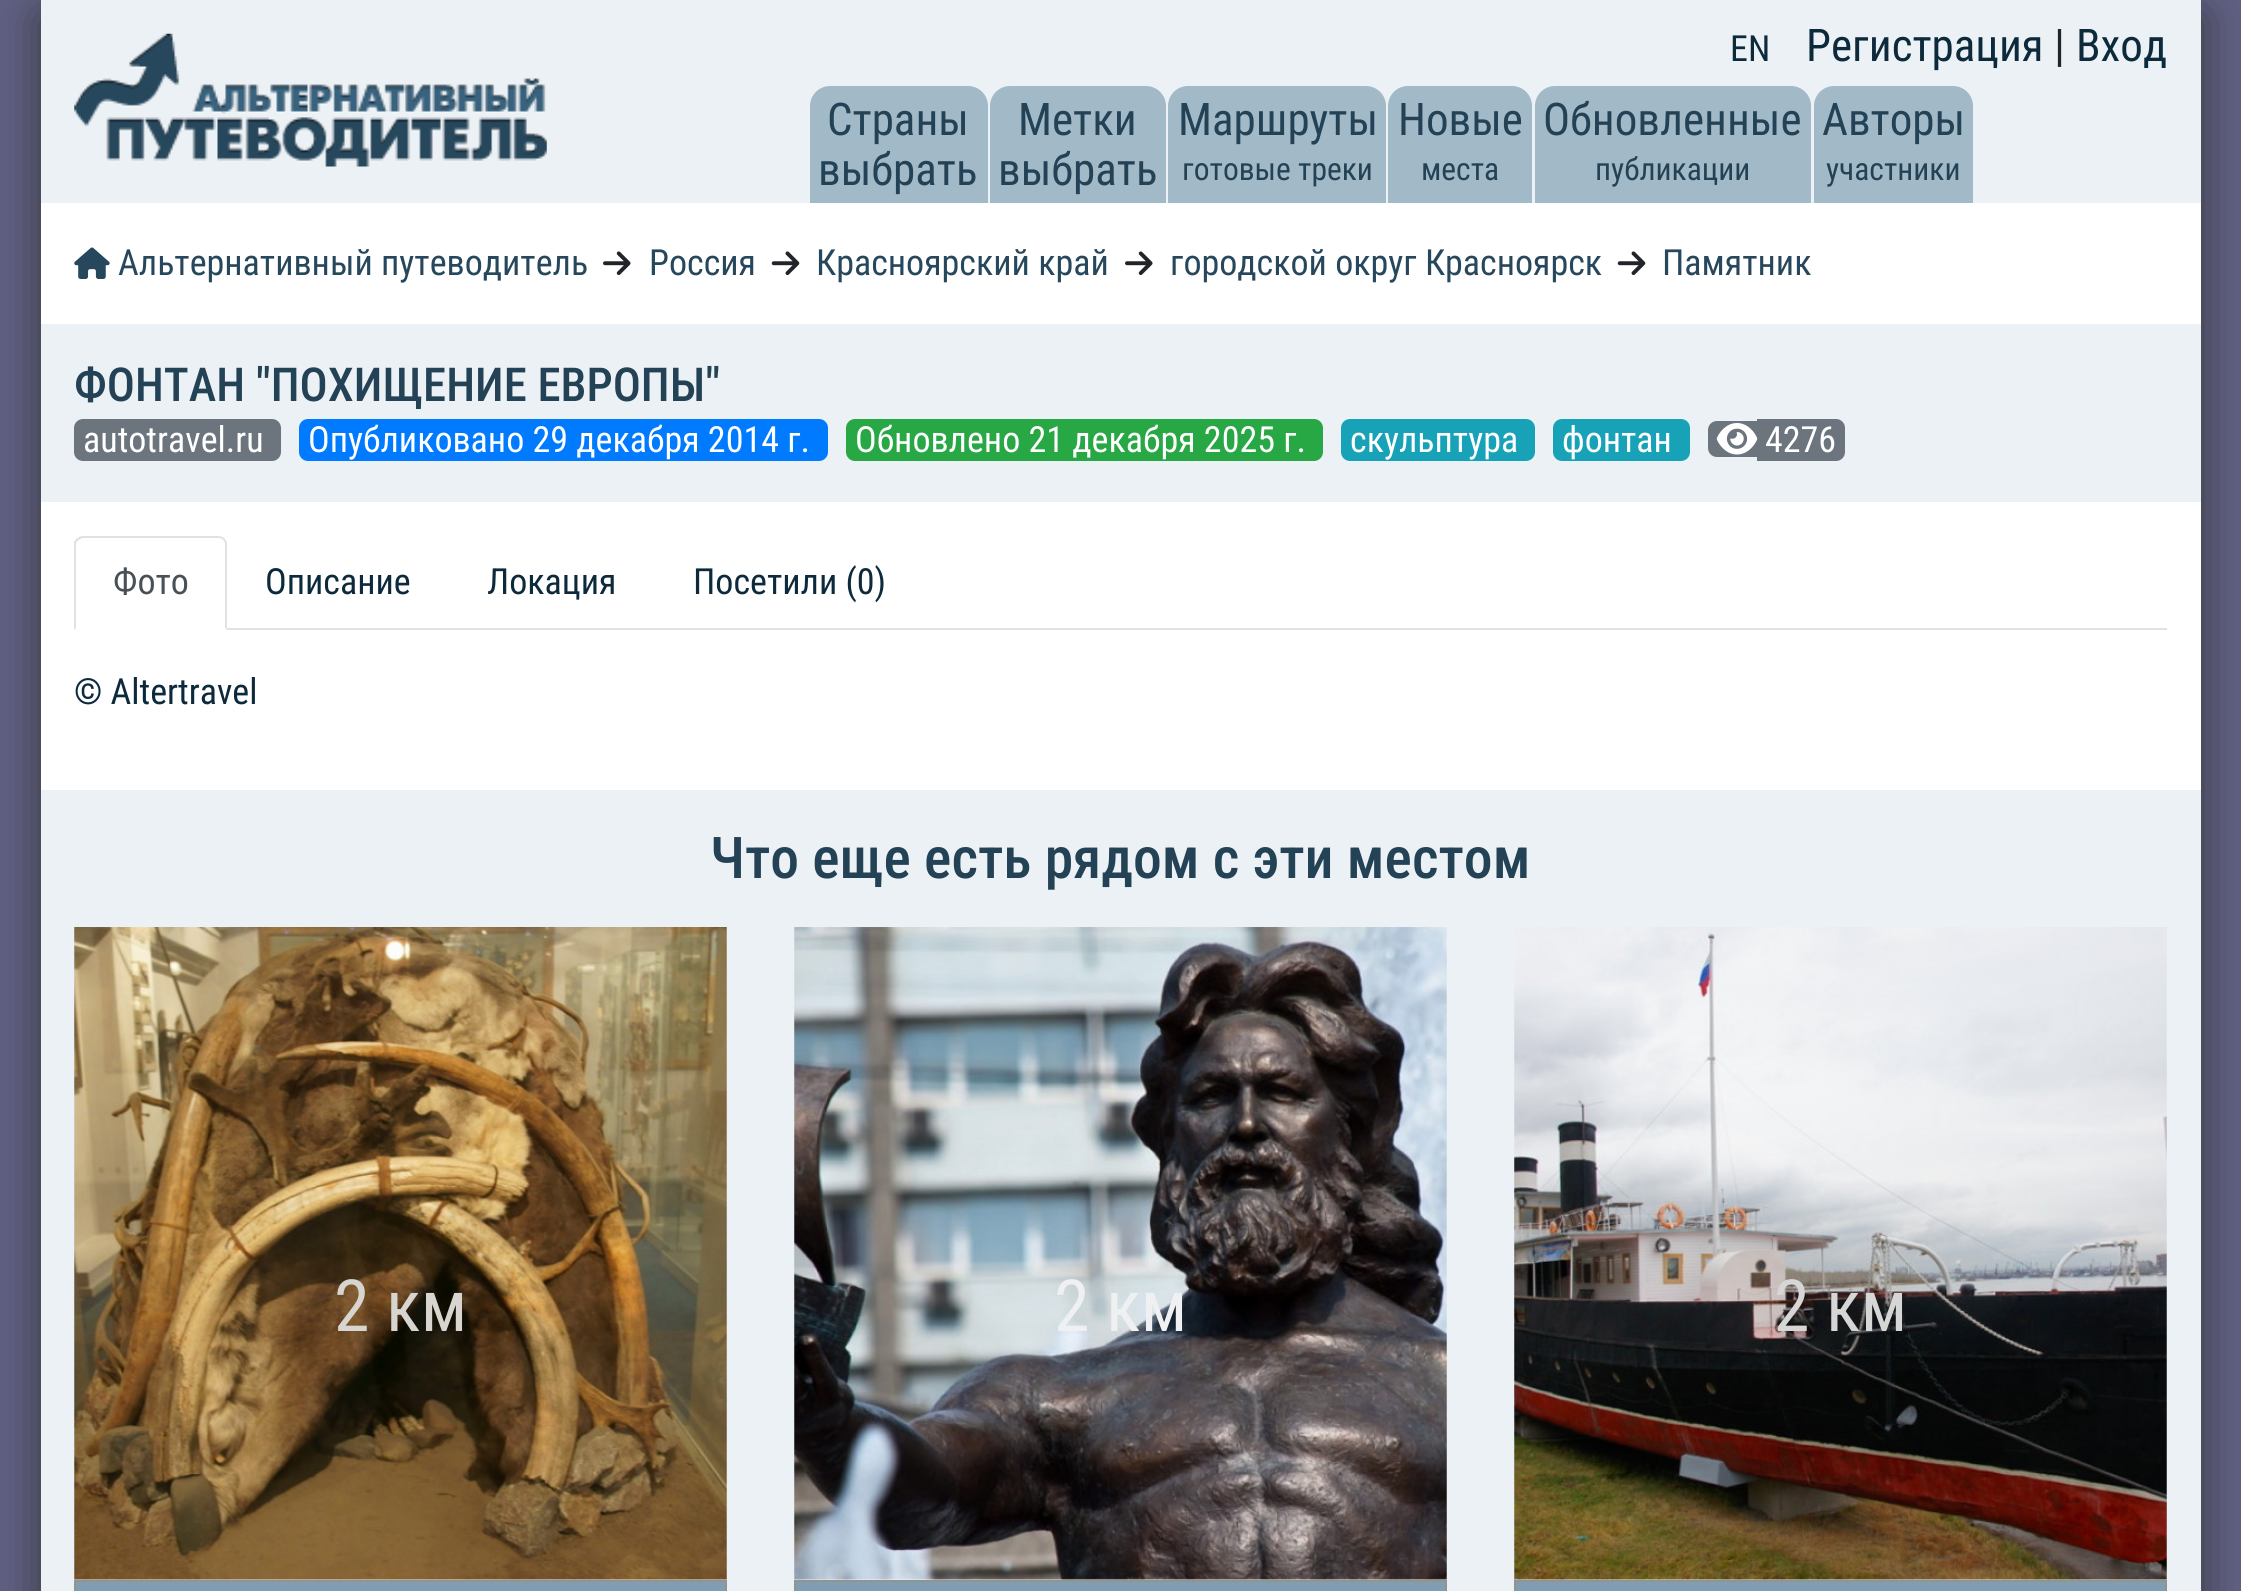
import math
import cairo

surface = cairo.ImageSurface(cairo.FORMAT_RGB24, 2241, 1591)
c = cairo.Context(surface)
options = cairo.FontOptions()
options.set_hint_metrics(cairo.HINT_METRICS_OFF)
options.set_hint_style(cairo.HINT_STYLE_NONE)
c.set_font_options(options)
c.set_miter_limit(4)
def C(code):
 c.set_source_rgb(*(v / 255 for v in bytes.fromhex(code[-6:])))
def F(family, size, italic, bold):
 c.select_font_face(family, cairo.FONT_SLANT_ITALIC if italic else cairo.FONT_SLANT_NORMAL, cairo.FONT_WEIGHT_BOLD if bold else cairo.FONT_WEIGHT_NORMAL)
 c.set_font_size(size)
def T(x, y, s):
 c.move_to(x, y)
 c.show_text(s)
def R(x, y, w, h):
 c.rectangle(x, y, w, h)
 c.fill()
def Q(x, y, w, h, r):
 c.new_sub_path()
 for i, (u, v) in enumerate([(x + w - r, y + h - r), (x + r, y + h - r), (x + r, y + r), (x + w - r, y + r)]):
  c.arc(u, v, r, i * math.pi / 2, (i + 1) * math.pi / 2)
 c.close_path()
def S(x, y, w, h, r, blur, alpha):
 c.push_group_with_content(cairo.CONTENT_ALPHA)
 c.set_operator(cairo.OPERATOR_SOURCE)
 for i in range(15, -16, -2):
  e = blur * i / 6
  if min(w, h) + 2 * e > 0:
   c.set_source_rgba(0, 0, 0, alpha * math.erfc((i - 1) / 8.5) / 2)
   Q(x - e, y - e, w + 2 * e, h + 2 * e, max(0, min(r + e + blur * .6, min(w, h) / 2 + e)))
   c.fill()
 c.mask(c.pop_group())
def I(path, x, y, w, h):
 c.save()
 c.set_source_surface(cairo.ImageSurface.create_from_png(path), x, y)
 c.rectangle(x, y, w, h)
 c.fill()
 c.restore()
C('606084')
c.paint()
C('323232')
S(41,16,2160,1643,0,22.5,.9)
C('ebf1f5')
R(41,0,2160,203)
I('1.png',74,33,473,134)
F('Roboto Condensed',36,0,0)
C('0d293c')
T(1730,61,'EN')
F('Roboto Condensed',45,0,0)
T(1806,61,'Регистрация')
C('212529')
T(2054,61,'|')
C('0d293c')
T(2076,61,'Вход')
C('a2b9c8')
c.new_path()
c.move_to(830,86)
c.line_to(968,86)
c.curve_to(979,86,988,95,988,106)
c.line_to(988,203)
c.line_to(810,203)
c.line_to(810,106)
c.curve_to(810,95,819,86,830,86)
c.close_path()
c.fill()
C('244255')
T(827,135,'Страны')
T(818,185,'выбрать')
C('a2b9c8')
c.new_path()
c.move_to(1010,86)
c.line_to(1146,86)
c.curve_to(1157,86,1166,95,1166,106)
c.line_to(1166,203)
c.line_to(990,203)
c.line_to(990,106)
c.curve_to(990,95,999,86,1010,86)
c.close_path()
c.fill()
C('244255')
T(1018,135,'Метки')
T(998,185,'выбрать')
C('a2b9c8')
c.new_path()
c.move_to(1188,86)
c.line_to(1366,86)
c.curve_to(1377,86,1386,95,1386,106)
c.line_to(1386,203)
c.line_to(1168,203)
c.line_to(1168,106)
c.curve_to(1168,95,1177,86,1188,86)
c.close_path()
c.fill()
C('244255')
T(1178,135,'Маршруты')
F('Roboto Condensed',31.5,0,0)
T(1182,180,'готовые треки')
C('a2b9c8')
c.new_path()
c.move_to(1408,86)
c.line_to(1512,86)
c.curve_to(1523,86,1532,95,1532,106)
c.line_to(1532,203)
c.line_to(1388,203)
c.line_to(1388,106)
c.curve_to(1388,95,1397,86,1408,86)
c.close_path()
c.fill()
F('Roboto Condensed',45,0,0)
C('244255')
T(1398,135,'Новые')
F('Roboto Condensed',31.5,0,0)
T(1421,180,'места')
C('a2b9c8')
c.new_path()
c.move_to(1555,86)
c.line_to(1791,86)
c.curve_to(1802,86,1811,95,1811,106)
c.line_to(1811,203)
c.line_to(1535,203)
c.line_to(1535,106)
c.curve_to(1535,95,1544,86,1555,86)
c.close_path()
c.fill()
F('Roboto Condensed',45,0,0)
C('244255')
T(1543,135,'Обновленные')
F('Roboto Condensed',31.5,0,0)
T(1595,180,'публикации')
C('a2b9c8')
c.new_path()
c.move_to(1834,86)
c.line_to(1953,86)
c.curve_to(1964,86,1973,95,1973,106)
c.line_to(1973,203)
c.line_to(1814,203)
c.line_to(1814,106)
c.curve_to(1814,95,1823,86,1834,86)
c.close_path()
c.fill()
F('Roboto Condensed',45,0,0)
C('244255')
T(1822,135,'Авторы')
F('Roboto Condensed',31.5,0,0)
T(1826,180,'участники')
C('ffffff')
R(41,203,2160,121)
I('2.png',74,247,36,32)
F('Roboto Condensed',36,0,0)
C('27475c')
T(118,275,'Альтернативный путеводитель')
I('3.png',603,251,28,25)
T(649,275,'Россия')
I('4.png',771,251,29,25)
T(816,275,'Красноярский край')
I('3.png',1125,251,28,25)
T(1170,275,'городской округ Красноярск')
I('4.png',1617,251,29,25)
T(1662,275,'Памятник')
C('ebf1f5')
R(41,324,2160,178)
F('Roboto Condensed Medium',46.75,0,0)
C('244255')
T(74,401,'ФОНТАН "ПОХИЩЕНИЕ ЕВРОПЫ"')
C('6c757d')
Q(74,419,207,42,9)
c.fill()
F('Roboto Condensed',36,0,0)
C('ffffff')
T(83,452,'autotravel.ru')
C('007bff')
Q(299,419,529,42,9)
c.fill()
C('ffffff')
T(308,452,'Опубликовано 29 декабря 2014 г.')
C('28a745')
Q(846,419,477,42,9)
c.fill()
C('ffffff')
T(855,452,'Обновлено 21 декабря 2025 г.')
C('17a2b8')
Q(1341,419,194,42,9)
c.fill()
C('ffffff')
T(1350,452,'скульптура')
C('17a2b8')
Q(1553,419,137,42,9)
c.fill()
C('ffffff')
T(1562,452,'фонтан')
C('6c757d')
c.new_path()
c.move_to(1717,421)
c.line_to(1757,421)
c.line_to(1757,457)
c.line_to(1717,457)
c.curve_to(1712,457,1708,453,1708,448)
c.line_to(1708,430)
c.curve_to(1708,425,1712,421,1717,421)
c.close_path()
c.fill()
c.new_path()
c.move_to(1757,419)
c.line_to(1836,419)
c.curve_to(1841,419,1845,423,1845,428)
c.line_to(1845,452)
c.curve_to(1845,457,1841,461,1836,461)
c.line_to(1757,461)
c.close_path()
c.fill()
I('5.png',1716,423,42,32)
C('ffffff')
T(1765,452,'4276')
R(41,502,2160,288)
C('dee2e6')
R(227,628,1940,2)
c.new_path()
c.move_to(83,536)
c.curve_to(81,536,79,537,77,538)
c.line_to(79,540)
c.line_to(82,538)
c.line_to(219,538)
c.curve_to(220,538,222,539,223,540)
c.line_to(224,538)
c.curve_to(223,537,220,536,218,536)
c.close_path()
c.fill()
c.new_path()
c.move_to(227,630)
c.line_to(227,544)
c.curve_to(227,542,226,540,224,538)
c.line_to(223,540)
c.curve_to(224,541,225,542,225,544)
c.line_to(225,628)
c.close_path()
c.fill()
C('ffffff')
c.new_path()
c.move_to(74,630)
c.line_to(227,630)
c.line_to(225,628)
c.line_to(76,628)
c.close_path()
c.fill()
C('dee2e6')
c.new_path()
c.move_to(74,630)
c.line_to(76,628)
c.line_to(76,544)
c.curve_to(76,542,77,541,79,540)
c.line_to(77,538)
c.curve_to(76,539,75,541,74,542)
c.close_path()
c.fill()
C('495057')
T(113,594,'Фото')
C('0d293c')
T(265,594,'Описание')
T(487,594,'Локация')
T(693,594,'Посетили (0)')
T(74,704,'© Altertravel')
C('ebf1f5')
R(41,790,2160,801)
F('Roboto Condensed Medium',57.6,0,0)
C('244255')
T(710,878,'Что еще есть рядом с эти местом')
I('6.png',74,927,653,653)
F('Roboto Condensed',72,0,0)
C('d8d5d0')
T(334,1331,'2 км')
C('809eb2')
c.rectangle(75,1581,651,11)
c.fill_preserve()
C('929393')
c.stroke()
I('7.png',794,927,653,653)
C('eef0f1')
T(1054,1331,'2 км')
C('809eb2')
c.rectangle(795,1581,651,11)
c.fill_preserve()
C('929393')
c.stroke()
I('8.png',1514,927,653,653)
C('d7d6d6')
T(1774,1331,'2 км')
C('809eb2')
c.rectangle(1515,1581,651,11)
c.fill_preserve()
C('929393')
c.stroke()
surface.write_to_png('o.png')
